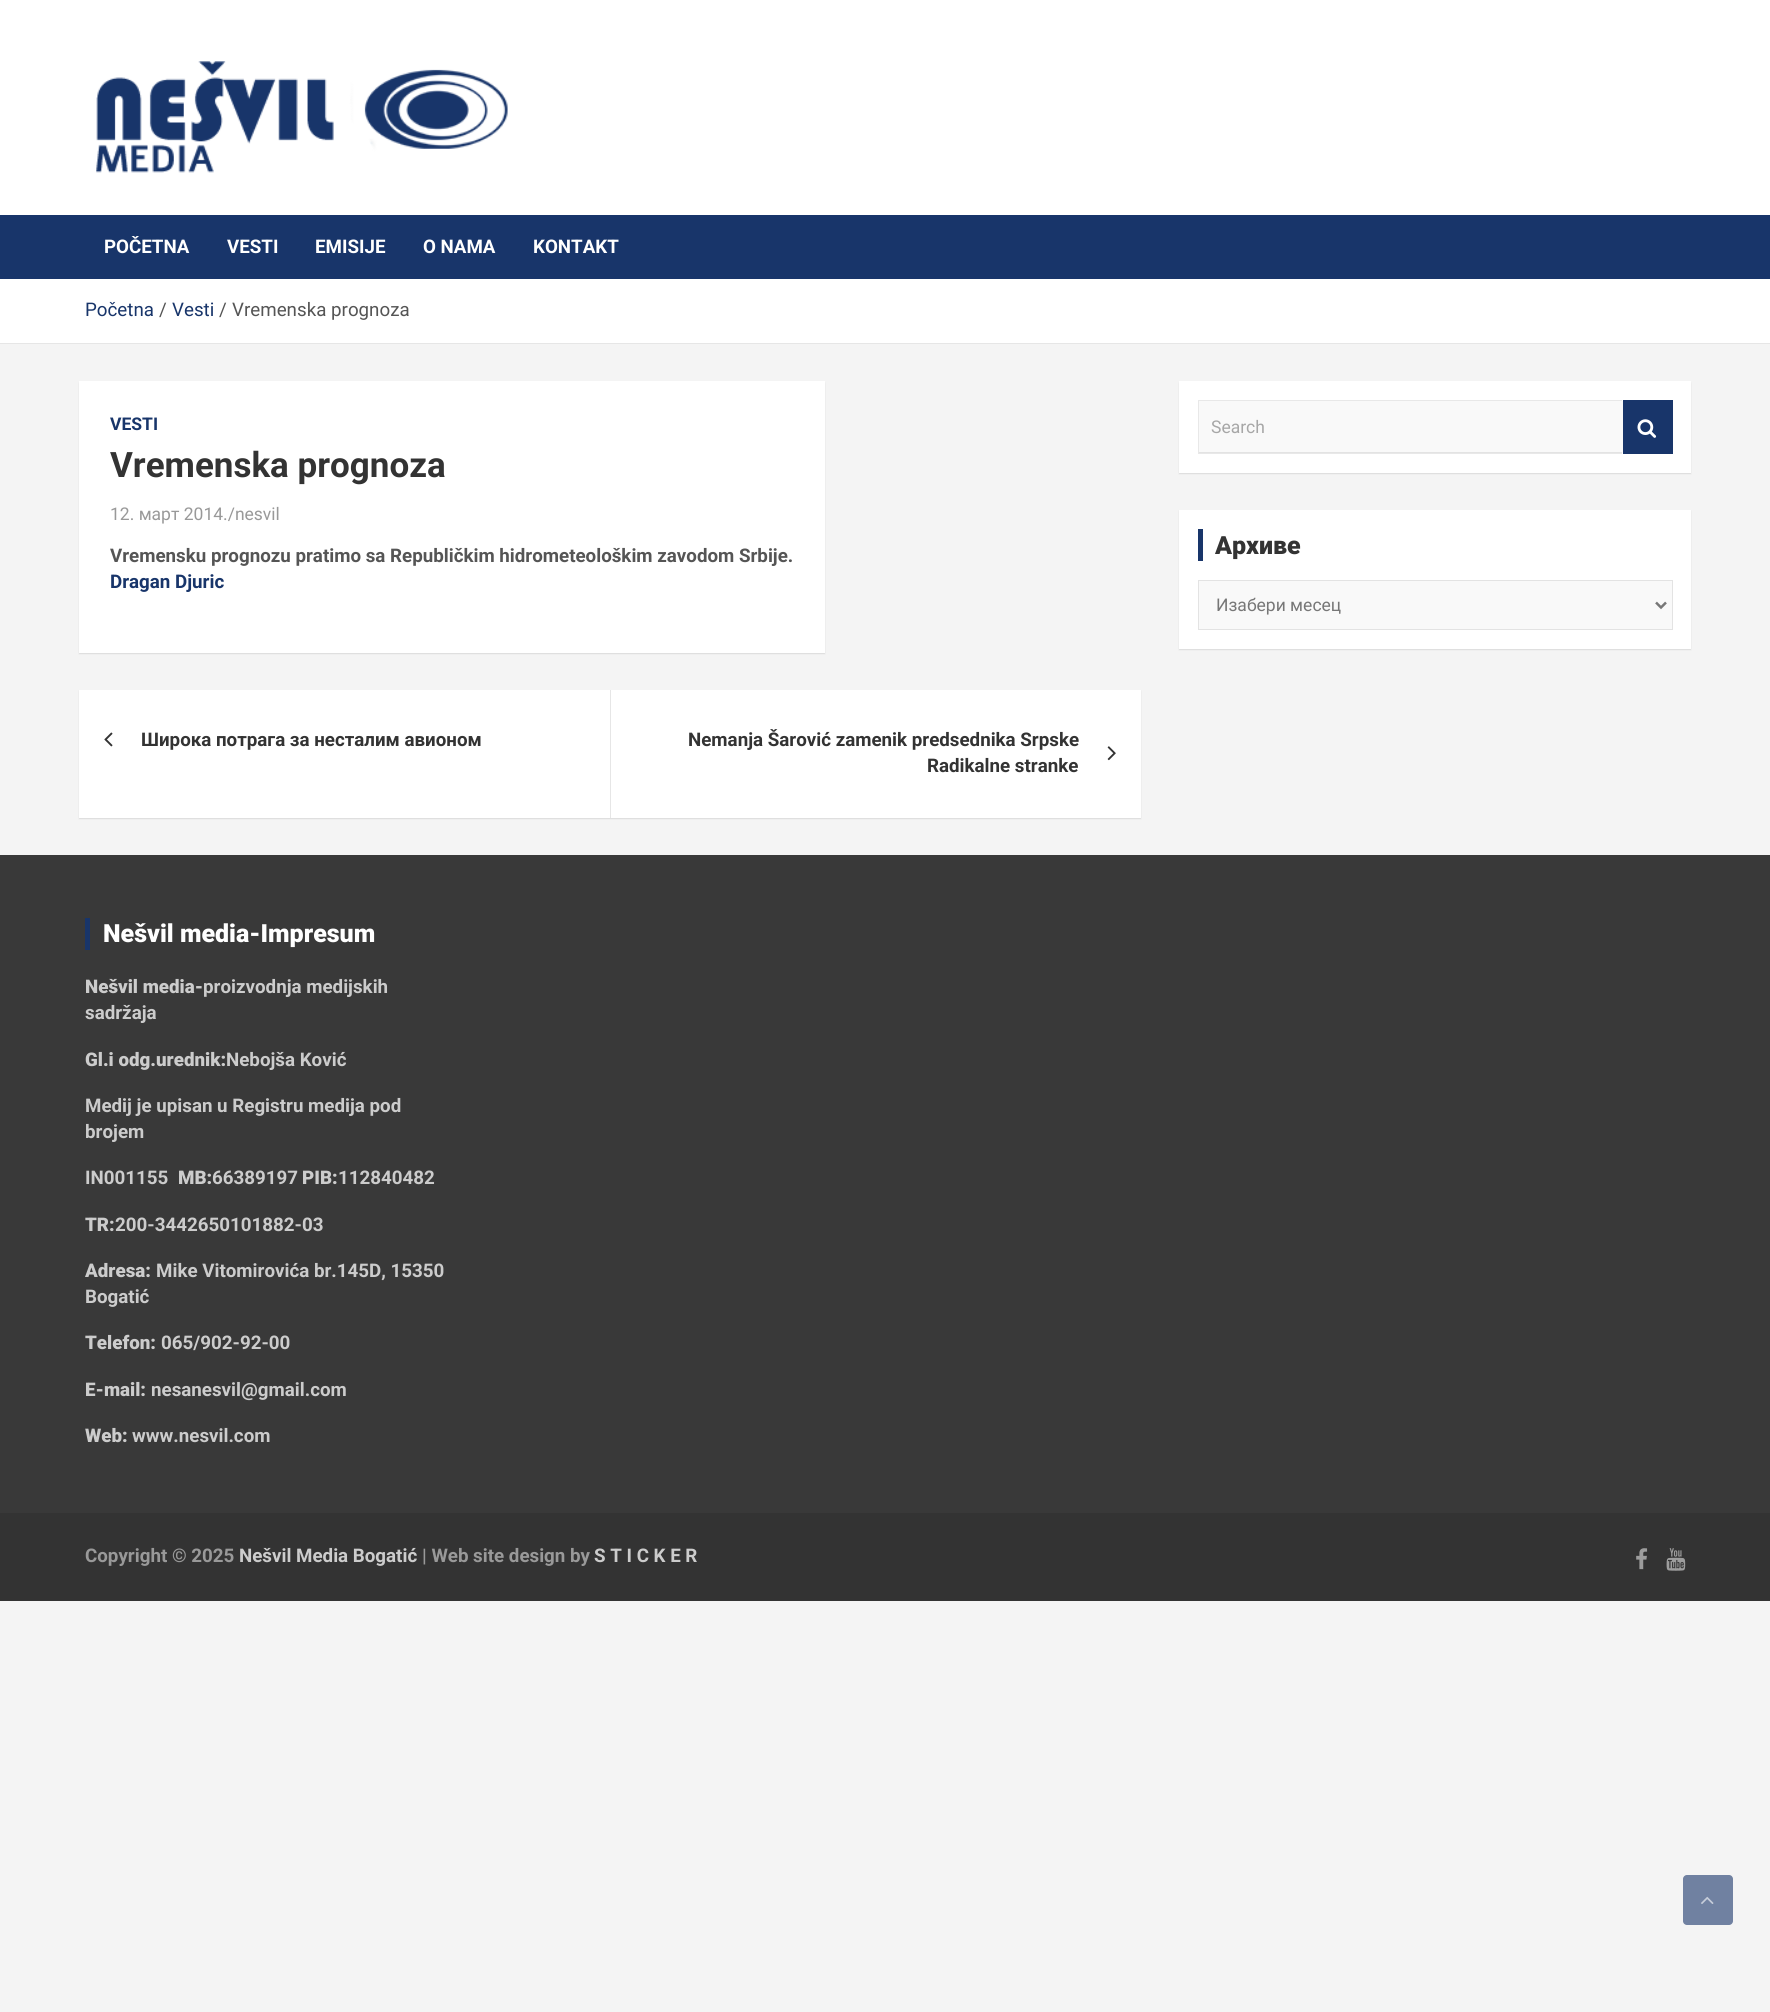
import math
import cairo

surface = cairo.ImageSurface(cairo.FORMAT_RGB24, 1770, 2012)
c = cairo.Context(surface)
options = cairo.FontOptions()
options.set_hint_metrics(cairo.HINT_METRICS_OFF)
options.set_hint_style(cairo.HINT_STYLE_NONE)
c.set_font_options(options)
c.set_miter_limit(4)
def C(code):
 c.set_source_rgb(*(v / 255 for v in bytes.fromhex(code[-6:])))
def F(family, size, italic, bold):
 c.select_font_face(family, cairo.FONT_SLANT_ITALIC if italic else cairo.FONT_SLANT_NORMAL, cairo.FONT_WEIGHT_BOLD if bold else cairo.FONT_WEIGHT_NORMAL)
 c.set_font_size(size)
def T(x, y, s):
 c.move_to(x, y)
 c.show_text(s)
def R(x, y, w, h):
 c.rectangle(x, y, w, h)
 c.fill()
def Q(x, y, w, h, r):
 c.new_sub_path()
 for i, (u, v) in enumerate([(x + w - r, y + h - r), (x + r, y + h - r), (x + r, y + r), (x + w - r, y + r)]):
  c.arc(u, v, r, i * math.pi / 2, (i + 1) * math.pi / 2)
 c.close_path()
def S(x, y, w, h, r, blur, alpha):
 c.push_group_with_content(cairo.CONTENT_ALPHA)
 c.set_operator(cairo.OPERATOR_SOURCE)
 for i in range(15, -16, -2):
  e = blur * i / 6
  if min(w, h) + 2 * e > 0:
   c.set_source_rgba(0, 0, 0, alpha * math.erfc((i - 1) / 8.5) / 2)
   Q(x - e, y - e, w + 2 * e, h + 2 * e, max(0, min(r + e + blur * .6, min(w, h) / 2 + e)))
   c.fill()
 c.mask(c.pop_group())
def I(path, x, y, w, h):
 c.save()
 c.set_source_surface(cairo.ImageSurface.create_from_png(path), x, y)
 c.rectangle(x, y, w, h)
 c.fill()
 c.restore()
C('f4f4f4')
c.paint()
C('ffffff')
R(0,0,1770,215)
I('1.png',96,61,412,112)
C('18356a')
R(0,215,1770,64)
F('Roboto',18.75,0,1)
C('ffffff')
T(104,253,'POČETNA')
T(227,253,'VESTI')
T(315,253,'EMISIJE')
T(423,253,'O NAMA')
T(533,253,'KONTAKT')
R(0,279,1770,64)
C('e6e6e6')
R(0,343,1770,1)
F('Roboto',18.75,0,0)
C('18356a')
T(85,316,'Početna')
C('555555')
T(159,316,'/')
C('18356a')
T(172,316,'Vesti')
C('555555')
T(219,316,'/')
T(232,316,'Vremenska prognoza')
C('000000')
S(79,383,746,271,0,.5,.1)
C('ffffff')
R(79,381,746,272)
F('Roboto',17.5,0,1)
C('18356a')
T(110,430,'VESTI')
F('Roboto',35,0,1)
C('333333')
T(110,477,'Vremenska prognoza')
F('Roboto',17.5,0,0)
C('999999')
T(110,520,'12. март 2014./nesvil')
F('Roboto',18.75,0,1)
C('555555')
T(110,562,'Vremensku prognozu pratimo sa Republičkim hidrometeološkim zavodom Srbije.')
C('18356a')
T(110,588,'Dragan Djuric')
C('000000')
S(79,691,1062,128,0,.5,.1)
C('ffffff')
R(79,690,1062,128)
I('2.png',104,732,9,15)
C('333333')
T(141,746,'Широка потрага за несталим авионом')
C('e6e6e6')
R(610,690,1,128)
C('333333')
T(688,746,'Nemanja Šarović zamenik predsednika Srpske')
I('3.png',1107,746,9,15)
T(927,772,'Radikalne stranke')
C('000000')
S(1179,383,512,91,0,.5,.1)
C('ffffff')
R(1179,381,512,92)
C('f9f9f9')
R(1199,401,424,52)
C('e8e8e8')
c.new_path()
c.move_to(1198,400)
c.line_to(1622,400)
c.line_to(1622,401)
c.line_to(1199,401)
c.close_path()
c.fill()
c.set_source_rgba(0,0,0,0.09)
c.new_path()
c.move_to(1622,454)
c.line_to(1198,454)
c.line_to(1199,452)
c.line_to(1622,452)
c.close_path()
c.fill()
c.new_path()
c.move_to(1198,454)
c.line_to(1198,400)
c.line_to(1199,401)
c.line_to(1199,452)
c.close_path()
c.fill()
F('Roboto',17.5,0,0)
C('a7a7a7')
T(1211,433,'Search')
C('18356a')
R(1623,400,50,54)
I('4.png',1637,419,20,19)
C('000000')
S(1179,511,512,139,0,.5,.1)
C('ffffff')
R(1179,510,512,139)
C('18356a')
R(1198,529,5,32)
F('Roboto Black',25,0,0)
C('333333')
T(1215,554,'Архиве')
C('f9f9f9')
c.rectangle(1198.5,580.5,474,49)
c.fill_preserve()
C('e3e3e3')
c.set_line_width(1)
c.stroke()
c.new_path()
c.move_to(1656,602.5)
c.line_to(1661,607.5)
c.line_to(1666,602.5)
C('777777')
c.set_line_width(2.5)
c.stroke()
F('Roboto',17.5,0,0)
T(1216,611,'Изабери месец')
C('393939')
R(0,855,1770,658)
C('18356a')
R(85,918,5,32)
F('Roboto Black',25,0,0)
C('ffffff')
T(103,942,'Nešvil media-Impresum')
F('Roboto Black',18.75,0,0)
C('cccccc')
T(85,993,'Nešvil media-')
F('Roboto',18.75,0,1)
T(203,993,'proizvodnja medijskih')
T(85,1019,'sadržaja')
F('Roboto Black',18.75,0,0)
T(85,1066,'Gl.i odg.urednik:')
F('Roboto',18.75,0,1)
T(226,1066,'Nebojša Ković')
T(85,1112,'Medij je upisan u Registru medija pod')
T(85,1138,'brojem')
T(85,1184,'IN001155')
F('Roboto Black',18.75,0,0)
T(178,1184,'MB:')
F('Roboto',18.75,0,1)
T(212,1184,'66389197')
F('Roboto Black',18.75,0,0)
T(302,1184,'PIB:')
F('Roboto',18.75,0,1)
T(338,1184,'112840482')
F('Roboto Black',18.75,0,0)
T(85,1231,'TR:')
F('Roboto',18.75,0,1)
T(115,1231,'200-3442650101882-03')
F('Roboto Black',18.75,0,0)
T(85,1277,'Adresa:')
F('Roboto',18.75,0,1)
T(156,1277,'Mike Vitomirovića br.145D, 15350')
T(85,1303,'Bogatić')
F('Roboto Black',18.75,0,0)
T(85,1349,'Telefon:')
F('Roboto',18.75,0,1)
T(161,1349,'065/902-92-00')
F('Roboto Black',18.75,0,0)
T(85,1396,'E-mail:')
F('Roboto',18.75,0,1)
T(151,1396,'nesanesvil@gmail.com')
F('Roboto Black',18.75,0,0)
T(85,1442,'Web:')
F('Roboto',18.75,0,1)
T(132,1442,'www.nesvil.com')
C('333333')
R(0,1513,1770,88)
C('999999')
T(85,1562,'Copyright © 2025')
C('cccccc')
T(239,1562,'Nešvil Media Bogatić')
C('999999')
T(422,1562,'| Web site design by')
C('cccccc')
T(594,1562,'S T I C K E R')
I('5.png',1636,1548,12,22)
I('6.png',1666,1548,20,23)
C('7081a1')
Q(1683,1875,50,50,4)
c.fill()
I('7.png',1701,1896,13,8)
surface.write_to_png('o.png')
